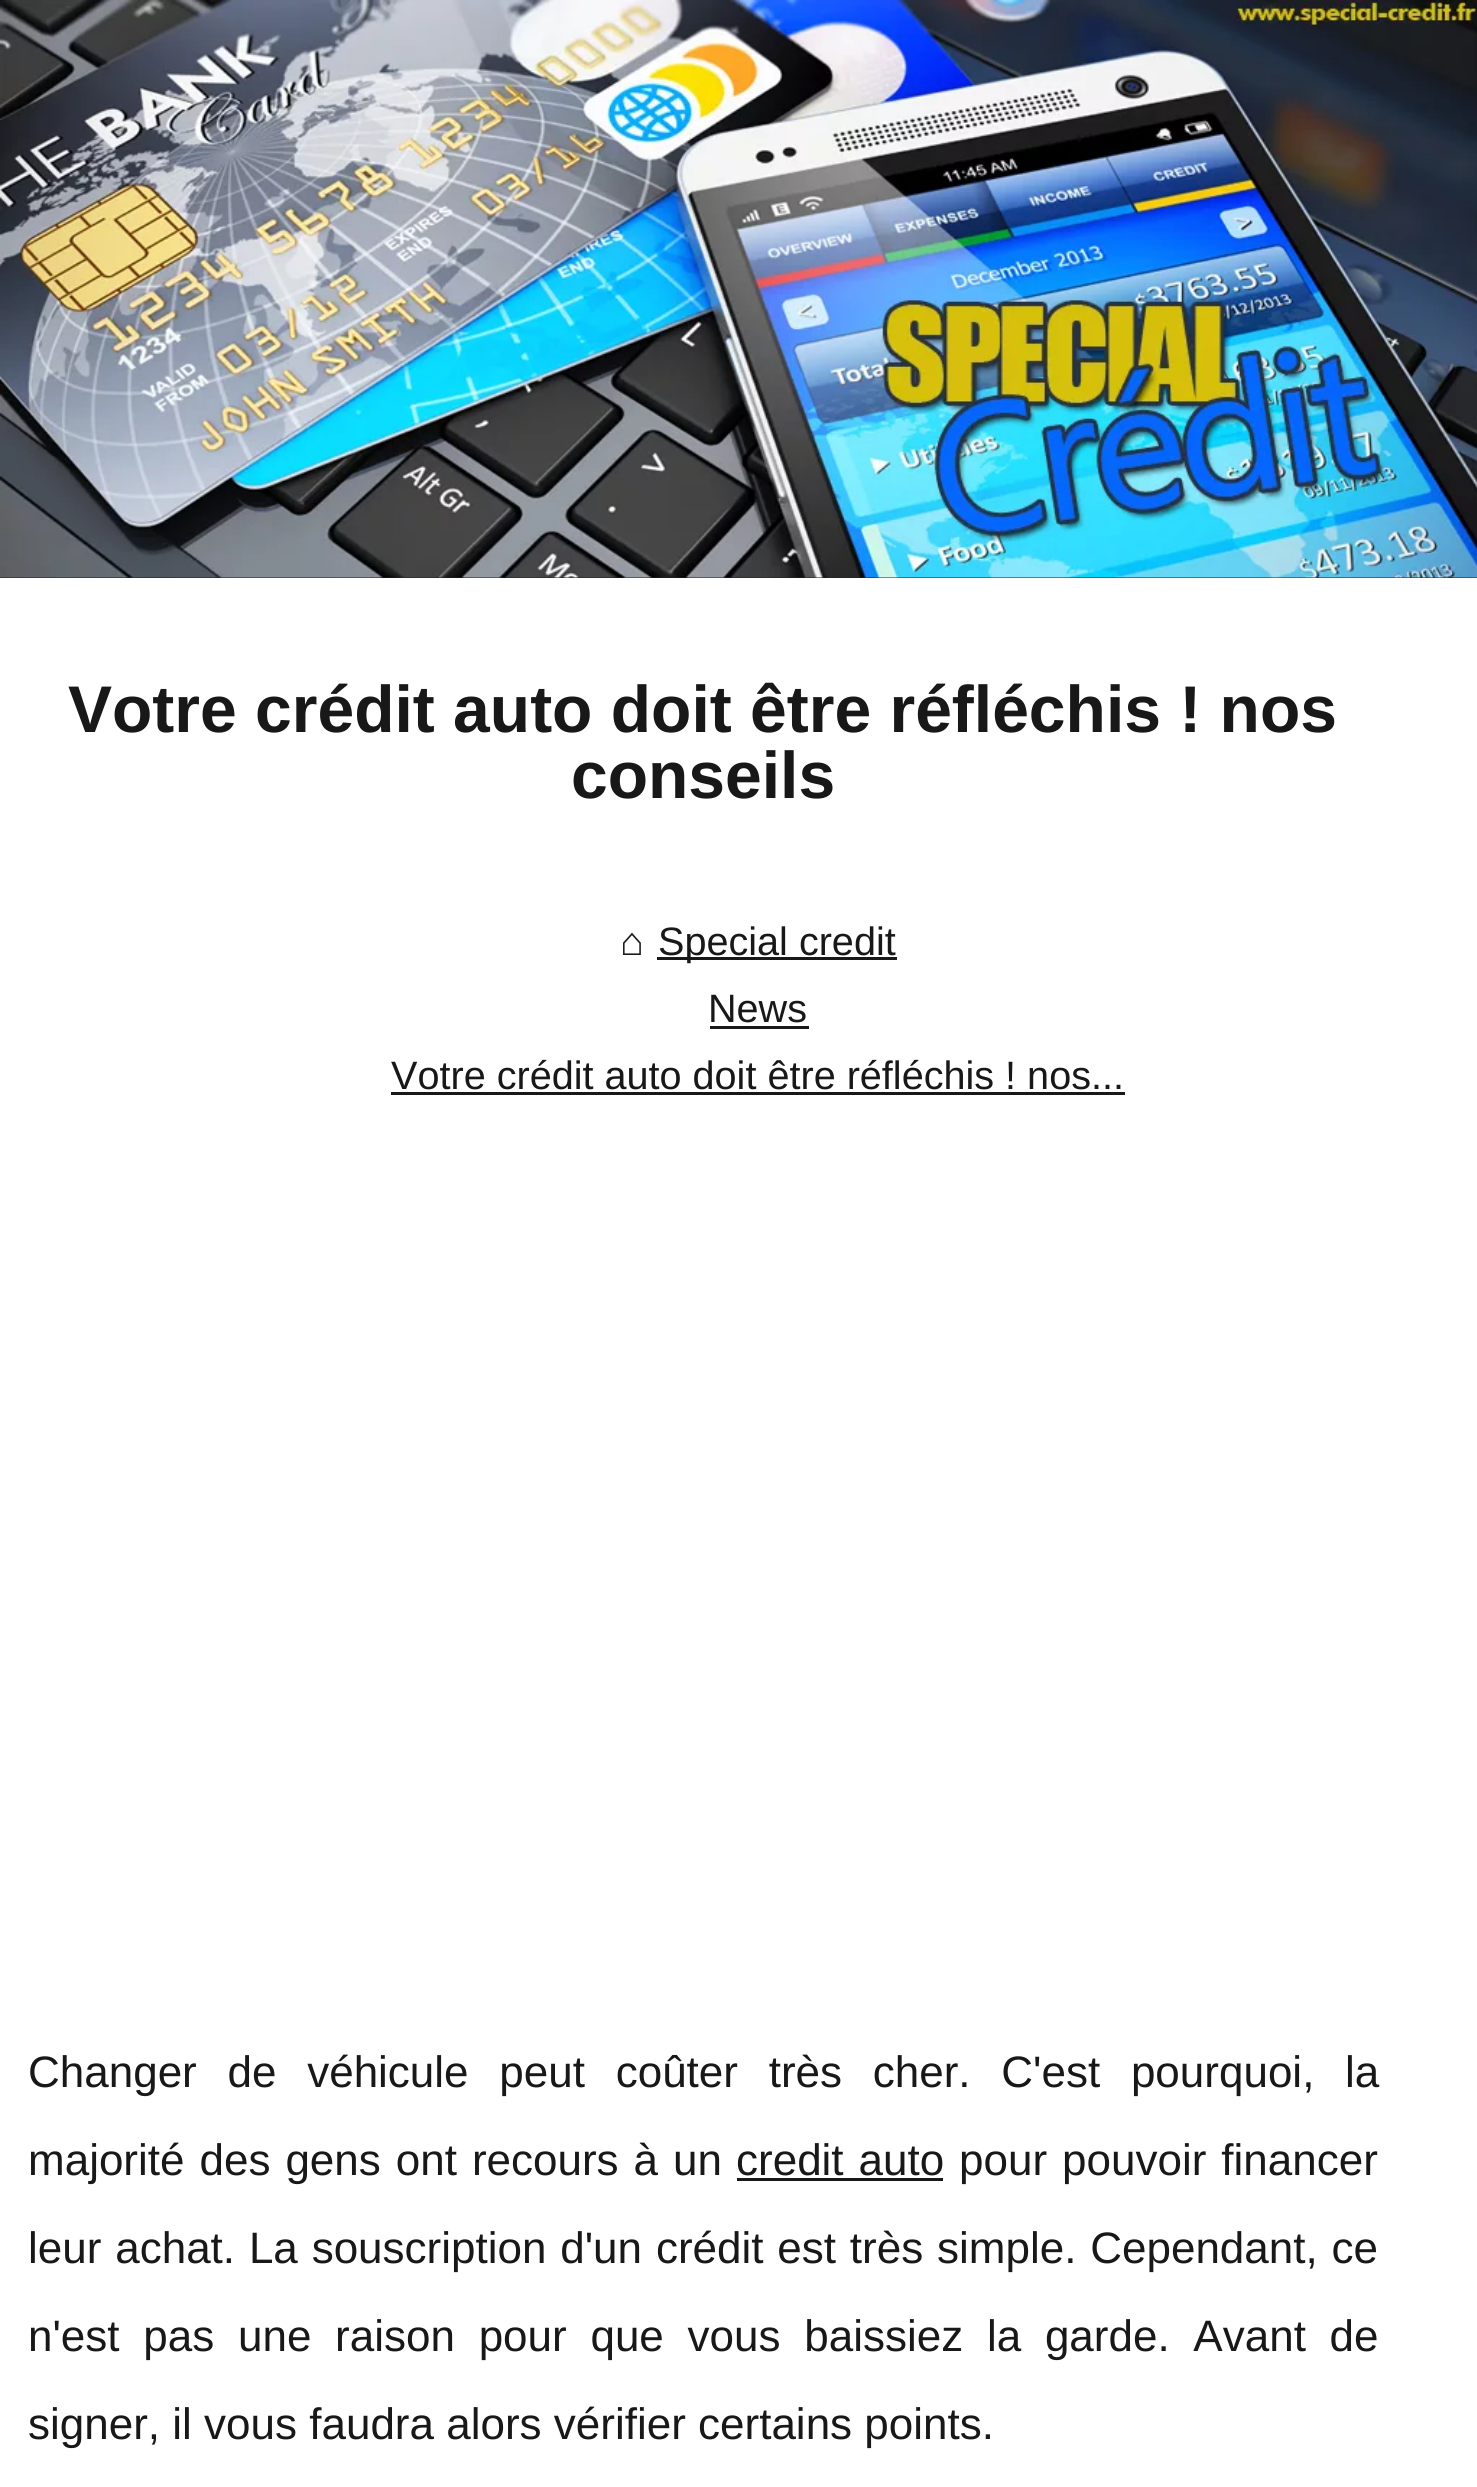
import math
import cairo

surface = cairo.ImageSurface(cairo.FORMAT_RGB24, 1477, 2487)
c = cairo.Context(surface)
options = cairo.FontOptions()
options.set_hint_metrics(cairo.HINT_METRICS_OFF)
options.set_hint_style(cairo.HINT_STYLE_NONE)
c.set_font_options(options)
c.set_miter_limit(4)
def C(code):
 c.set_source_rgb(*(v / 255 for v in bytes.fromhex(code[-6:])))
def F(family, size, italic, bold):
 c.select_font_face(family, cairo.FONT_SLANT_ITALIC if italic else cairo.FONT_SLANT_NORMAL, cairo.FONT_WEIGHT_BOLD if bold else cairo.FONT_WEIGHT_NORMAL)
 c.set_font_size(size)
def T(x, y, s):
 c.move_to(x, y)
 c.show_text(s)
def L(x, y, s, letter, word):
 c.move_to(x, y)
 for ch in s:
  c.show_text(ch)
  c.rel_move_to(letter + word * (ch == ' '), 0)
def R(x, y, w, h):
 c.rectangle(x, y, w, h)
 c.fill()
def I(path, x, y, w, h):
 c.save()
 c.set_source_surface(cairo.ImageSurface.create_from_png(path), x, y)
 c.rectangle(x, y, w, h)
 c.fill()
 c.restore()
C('202020')
c.paint()
I('1.png',0,0,1477,578)
C('ffffff')
R(0,578,1477,1909)
F('Liberation Sans',66,0,1)
C('181818')
T(68,732,'Votre crédit auto doit être réfléchis ! nos')
T(571,798,'conseils')
F('Liberation Sans',39.6,0,0)
T(620,955,'⌂')
R(657,957,240,3)
T(658,955,'Special credit')
T(708,1022,'News')
R(710,1026,99,3)
T(391,1089,'Votre crédit auto doit être réfléchis ! nos...')
R(391,1092,734,3)
F('Liberation Sans',44,0,0)
L(28,2087,'Changer de véhicule peut coûter très cher. C\'est pourquoi, la',0,18.5)
L(28,2175,'majorité des gens ont recours à un',0,2.75)
L(736,2175,'credit auto',0,2.75)
R(737,2178,206,3)
L(959,2175,'pour pouvoir financer',0,2.75)
L(28,2263,'leur achat. La souscription d\'un crédit est très simple. Cependant, ce',0,1.6)
L(28,2351,'n\'est pas une raison pour que vous baissiez la garde. Avant de',0,11.5)
T(28,2439,'signer, il vous faudra alors vérifier certains points.')
surface.write_to_png('o.png')
